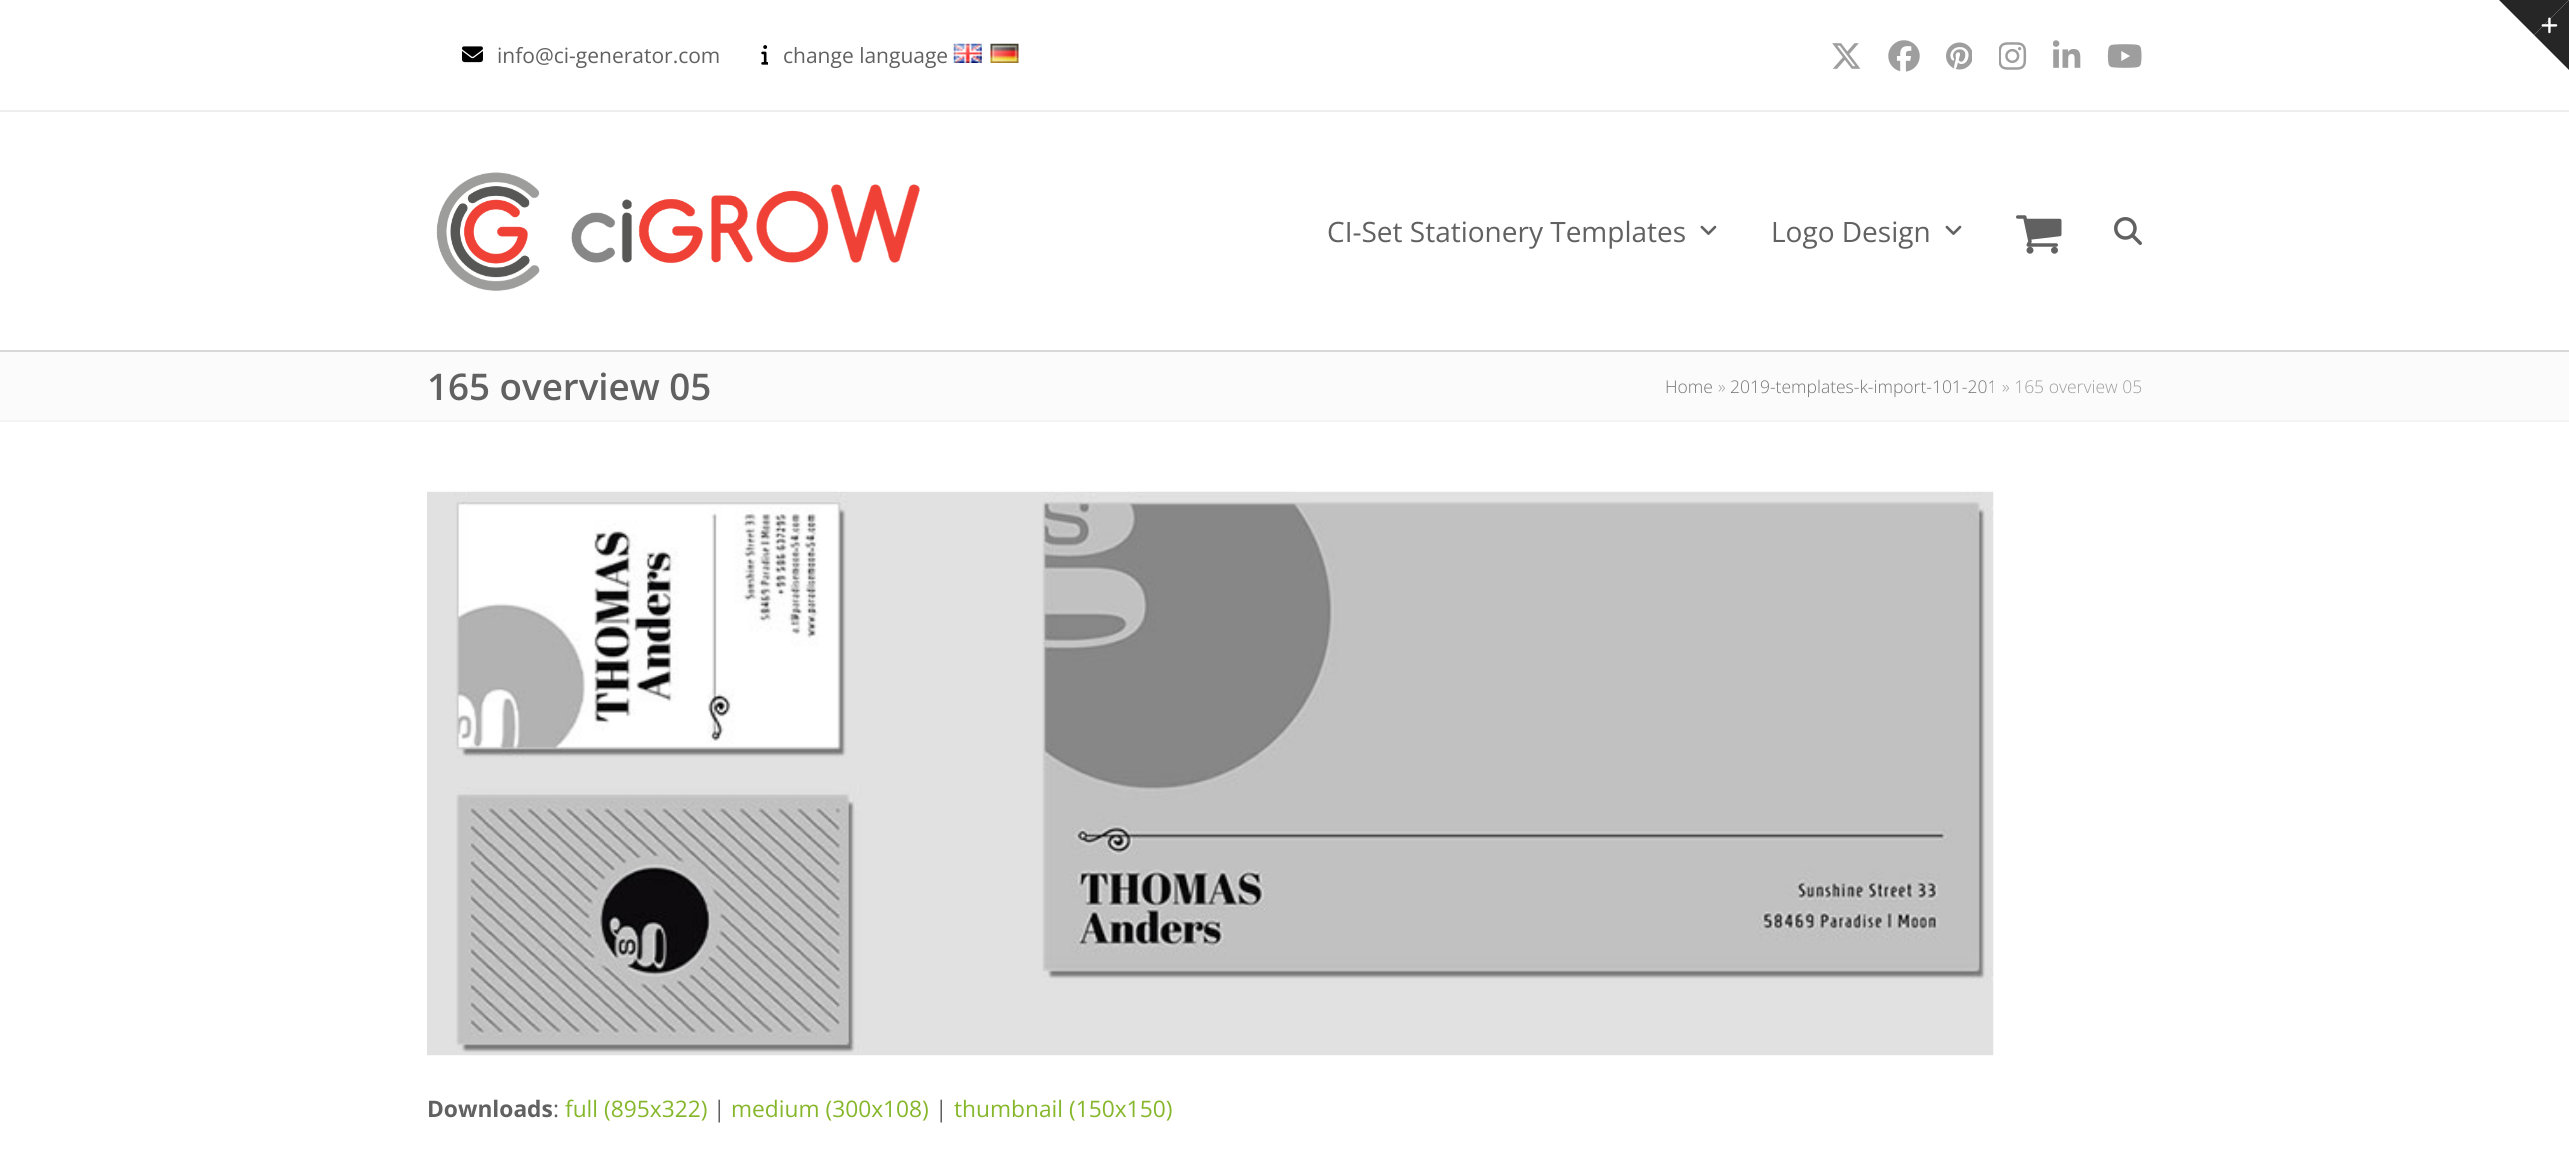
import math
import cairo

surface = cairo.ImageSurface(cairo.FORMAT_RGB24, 2569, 1168)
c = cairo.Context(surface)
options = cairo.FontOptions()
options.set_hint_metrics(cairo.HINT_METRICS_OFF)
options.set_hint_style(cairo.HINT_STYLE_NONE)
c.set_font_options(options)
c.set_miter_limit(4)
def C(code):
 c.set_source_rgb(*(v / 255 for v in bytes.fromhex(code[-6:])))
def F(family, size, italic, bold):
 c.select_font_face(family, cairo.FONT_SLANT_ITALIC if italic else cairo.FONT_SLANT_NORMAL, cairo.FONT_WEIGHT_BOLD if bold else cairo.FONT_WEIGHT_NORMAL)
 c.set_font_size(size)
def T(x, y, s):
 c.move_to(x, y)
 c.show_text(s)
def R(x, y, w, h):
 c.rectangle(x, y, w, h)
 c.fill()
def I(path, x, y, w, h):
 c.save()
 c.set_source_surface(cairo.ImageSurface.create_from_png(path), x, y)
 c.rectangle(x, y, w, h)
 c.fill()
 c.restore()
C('ffffff')
c.paint()
C('262626')
c.new_path()
c.move_to(2499,0)
c.line_to(2569,0)
c.line_to(2534,35)
c.close_path()
c.fill()
c.new_path()
c.move_to(2569,0)
c.line_to(2569,70)
c.line_to(2534,35)
c.close_path()
c.fill()
I('1.png',2541,17,17,17)
C('eeeeee')
R(0,110,2569,2)
I('2.png',462,46,21,17)
F('Open Sans',21,0,0)
C('616161')
T(497,63,'info@ci-generator.com')
I('3.png',761,45,7,20)
T(783,63,'change language')
I('4.png',953,43,29,20)
I('5.png',990,43,29,20)
I('6.png',1832,43,29,26)
I('7.png',1888,40,32,32)
I('8.png',1946,42,26,28)
I('9.png',1999,42,28,28)
I('10.png',2053,40,28,28)
I('11.png',2107,44,35,24)
I('12.png',436,172,484,119)
F('Open Sans',28,0,0)
T(1327,242,'CI-Set Stationery Templates')
I('13.png',1700,225,17,10)
T(1771,242,'Logo Design')
I('13.png',1945,225,17,10)
I('14.png',2016,215,46,39)
I('15.png',2114,217,28,28)
C('fbfbfb')
R(0,352,2569,68)
C('d8d8d8')
R(0,350,2569,2)
C('f4f4f4')
R(0,420,2569,2)
F('Open Sans SemiBold',36.75,0,0)
C('616161')
T(427,400,'165 overview 05')
F('Open Sans Light',17.5,0,0)
C('757575')
T(1665,393,'Home')
C('9e9e9e')
T(1718,393,'»')
C('757575')
T(1730,393,'2019-templates-k-import-101-201')
C('9e9e9e')
T(2002,393,'» 165 overview 05')
I('16.png',427,491,1567,565)
F('Open Sans',22.75,0,1)
C('616161')
T(427,1117,'Downloads')
F('Open Sans',22.75,0,0)
T(553,1117,':')
C('86b72a')
T(565,1117,'full (895x322)')
C('616161')
T(713,1117,'|')
C('86b72a')
T(731,1117,'medium (300x108)')
C('616161')
T(935,1117,'|')
C('86b72a')
T(954,1117,'thumbnail (150x150)')
surface.write_to_png('o.png')
